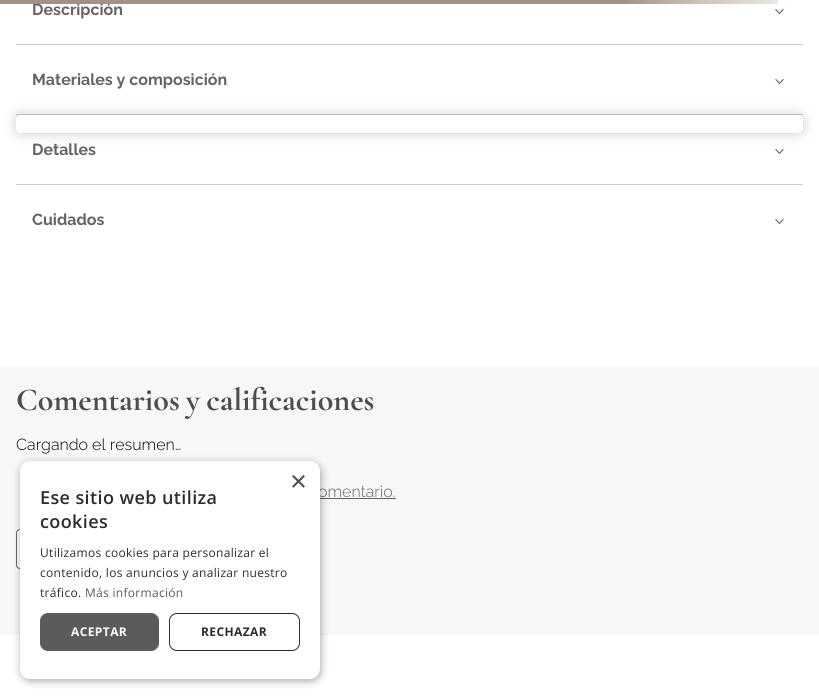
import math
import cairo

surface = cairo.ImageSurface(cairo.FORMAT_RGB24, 819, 699)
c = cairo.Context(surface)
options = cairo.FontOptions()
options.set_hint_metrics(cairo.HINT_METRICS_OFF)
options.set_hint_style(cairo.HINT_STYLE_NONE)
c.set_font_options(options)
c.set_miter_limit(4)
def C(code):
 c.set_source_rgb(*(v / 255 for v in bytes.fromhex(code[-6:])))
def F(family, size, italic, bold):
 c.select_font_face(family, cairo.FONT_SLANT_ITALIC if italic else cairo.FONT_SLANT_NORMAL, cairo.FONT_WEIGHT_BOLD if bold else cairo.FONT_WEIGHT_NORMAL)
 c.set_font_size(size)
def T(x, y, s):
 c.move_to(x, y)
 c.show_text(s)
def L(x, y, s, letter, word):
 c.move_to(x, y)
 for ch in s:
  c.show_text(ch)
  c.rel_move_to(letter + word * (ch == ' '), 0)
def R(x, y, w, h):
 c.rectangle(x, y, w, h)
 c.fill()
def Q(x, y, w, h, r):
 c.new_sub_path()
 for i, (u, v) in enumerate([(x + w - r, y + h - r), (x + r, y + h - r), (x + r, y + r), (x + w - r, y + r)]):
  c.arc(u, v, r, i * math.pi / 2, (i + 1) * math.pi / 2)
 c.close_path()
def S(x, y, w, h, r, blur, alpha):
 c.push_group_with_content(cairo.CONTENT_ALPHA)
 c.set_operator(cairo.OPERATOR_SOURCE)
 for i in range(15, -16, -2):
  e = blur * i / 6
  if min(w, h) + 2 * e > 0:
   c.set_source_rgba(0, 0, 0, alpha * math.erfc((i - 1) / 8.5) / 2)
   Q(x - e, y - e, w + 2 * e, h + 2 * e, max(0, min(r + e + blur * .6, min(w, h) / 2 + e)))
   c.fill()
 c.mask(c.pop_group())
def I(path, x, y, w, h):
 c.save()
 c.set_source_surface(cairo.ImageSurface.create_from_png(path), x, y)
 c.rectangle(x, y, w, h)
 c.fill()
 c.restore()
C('ffffff')
c.paint()
F('Raleway',16,0,1)
C('676365')
T(32,15,'Descripción')
gradient = cairo.LinearGradient(0,2,778,2)
gradient.add_color_stop_rgba(.8,0.639,0.573,0.514,1)
gradient.add_color_stop_rgba(.9,0.8,0.765,0.729,1)
gradient.add_color_stop_rgba(1,0.922,0.906,0.89,1)
c.set_source(gradient)
R(0,0,778,4)
I('1.png',775,9,9,5)
C('d0cfcf')
R(16,44,787,1)
C('676365')
T(32,85,'Materiales y composición')
I('1.png',775,79,9,5)
C('d0cfcf')
R(16,114,787,1)
C('676365')
T(32,155,'Detalles')
I('1.png',775,149,9,5)
C('d0cfcf')
R(16,184,787,1)
C('676365')
T(32,225,'Cuidados')
I('1.png',775,219,9,5)
C('000000')
S(16,115,787,18,5,6.5,.21)
C('ffffff')
Q(16,115,787,18,5)
c.fill()
C('f9f7f5')
R(0,366,819,269)
C('f2f4f5')
R(16,419,787,1)
F('Cormorant Garamond',32,0,1)
C('4d4d4d')
L(16,410,'Comentarios y calificaciones',0,-1)
F('Raleway Light',16,0,0)
C('000000')
T(16,450,'Cargando el resumen…')
C('676365')
T(318,497,'omentario.')
R(320,498,76,1)
C('ffffff')
Q(16.5,529.5,141,39,3.5)
c.fill_preserve()
C('676365')
c.set_line_width(1)
c.stroke()
C('000000')
S(21,463,300,218,10,4,.35)
C('ffffff')
Q(20,461,300,218,10)
c.fill()
F('Liberation Sans',29,0,0)
C('4d4d4d')
T(290,491,'×')
F('Open Sans SemiBold',18,0,0)
C('2d2d2d')
L(40,504,'Ese sitio web utiliza',.4,0)
L(40,528,'cookies',.4,0)
F('Open Sans',12,0,0)
L(40,557,'Utilizamos cookies para personalizar el',.3,0)
L(40,577,'contenido, los anuncios y analizar nuestro',.3,0)
L(40,597,'tráfico.',.3,0)
C('5b5b5b')
L(85,597,'Más información',.3,0)
Q(40,613,119,38,8)
c.fill()
F('Open Sans',12,0,1)
C('ffffff')
L(71,636,'ACEPTAR',.4,0)
Q(169.5,613.5,130,37,7.5)
C('2d2d2d')
c.stroke()
L(201,636,'RECHAZAR',.4,0)
surface.write_to_png('o.png')
